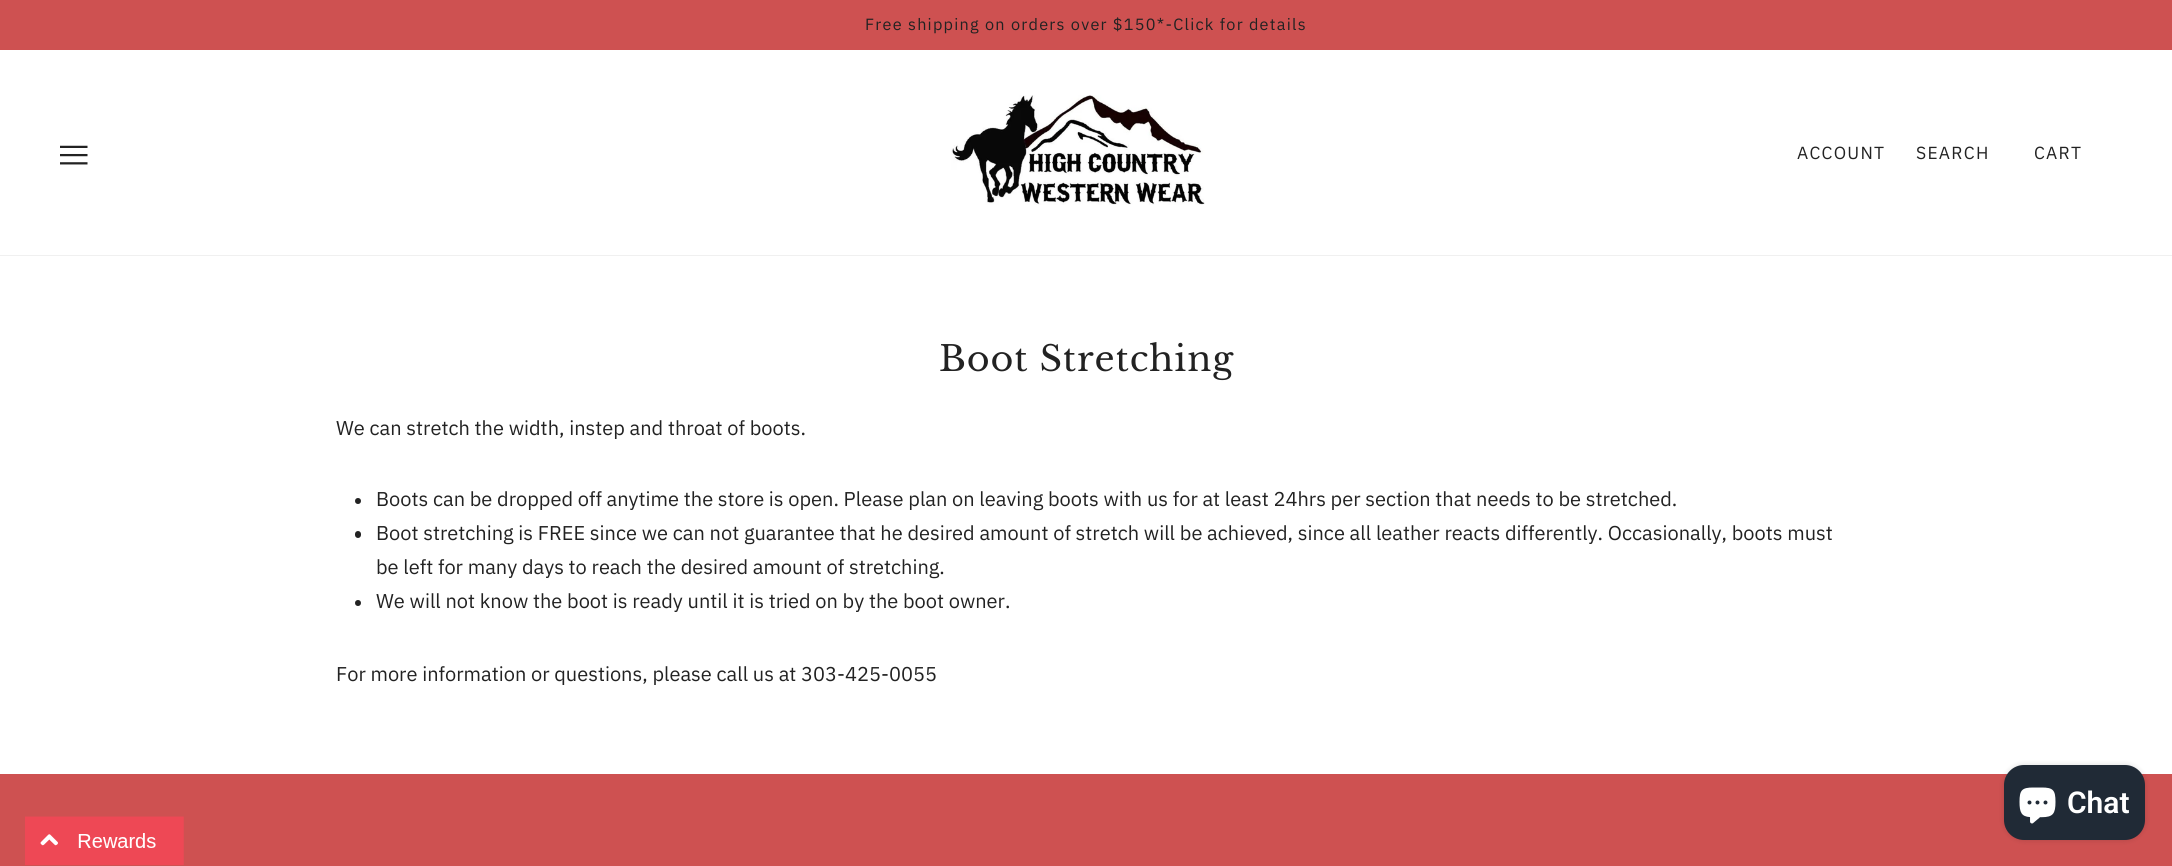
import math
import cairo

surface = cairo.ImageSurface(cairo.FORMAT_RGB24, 2172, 866)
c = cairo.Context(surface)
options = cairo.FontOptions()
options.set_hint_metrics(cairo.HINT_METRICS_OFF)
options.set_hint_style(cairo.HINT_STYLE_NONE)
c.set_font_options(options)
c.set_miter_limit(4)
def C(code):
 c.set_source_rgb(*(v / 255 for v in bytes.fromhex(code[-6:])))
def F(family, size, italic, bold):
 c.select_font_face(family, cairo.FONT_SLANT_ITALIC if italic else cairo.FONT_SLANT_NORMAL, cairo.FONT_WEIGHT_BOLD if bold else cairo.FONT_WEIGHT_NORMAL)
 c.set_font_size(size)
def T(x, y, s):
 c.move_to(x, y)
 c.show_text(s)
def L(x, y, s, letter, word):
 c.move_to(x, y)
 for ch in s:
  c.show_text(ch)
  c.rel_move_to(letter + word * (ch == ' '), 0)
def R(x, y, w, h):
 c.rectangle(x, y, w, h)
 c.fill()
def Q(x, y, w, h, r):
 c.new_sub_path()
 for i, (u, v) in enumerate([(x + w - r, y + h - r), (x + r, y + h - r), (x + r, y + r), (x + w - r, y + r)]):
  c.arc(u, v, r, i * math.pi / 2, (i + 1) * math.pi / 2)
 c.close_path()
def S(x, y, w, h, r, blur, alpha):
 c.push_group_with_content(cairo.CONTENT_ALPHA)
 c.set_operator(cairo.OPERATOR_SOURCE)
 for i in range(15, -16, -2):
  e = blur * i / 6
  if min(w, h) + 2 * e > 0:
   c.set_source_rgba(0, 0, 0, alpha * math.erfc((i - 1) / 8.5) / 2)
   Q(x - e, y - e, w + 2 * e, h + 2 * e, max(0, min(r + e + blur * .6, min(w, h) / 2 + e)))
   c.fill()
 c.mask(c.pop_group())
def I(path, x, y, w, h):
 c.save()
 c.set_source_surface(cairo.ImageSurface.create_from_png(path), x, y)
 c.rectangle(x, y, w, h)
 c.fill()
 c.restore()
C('ffffff')
c.paint()
C('ce5151')
R(0,0,2172,50)
F('IBM Plex Sans',16.25,0,0)
C('222222')
L(865,30,'Free shipping on orders over $150*-Click for details',1.25,0)
C('f0f0f0')
R(0,255,2172,1)
I('1.png',60,145,28,20)
I('2.png',951,95,254,110)
F('IBM Plex Sans',17.5,0,0)
C('222222')
L(1797,159,'ACCOUNT',1.25,0)
L(1916,159,'SEARCH',1.25,0)
L(2034,159,'CART',1.25,0)
F('Libre Baskerville',35,0,0)
L(939,371,'Boot Stretching',.9,0)
F('IBM Plex Sans',20,0,0)
T(336,435,'We can stretch the width, instep and throat of boots.')
c.new_path()
c.arc(358,501,3,0,2 * math.pi)
c.fill()
T(376,506,'Boots can be dropped off anytime the store is open. Please plan on leaving boots with us for at least 24hrs per section that needs to be stretched.')
Q(355,531,6,7,3)
c.fill()
T(376,540,'Boot stretching is FREE since we can not guarantee that he desired amount of stretch will be achieved, since all leather reacts differently. Occasionally, boots must')
T(376,574,'be left for many days to reach the desired amount of stretching.')
c.new_path()
c.arc(358,603,3,0,2 * math.pi)
c.fill()
T(376,608,'We will not know the boot is ready until it is tried on by the boot owner.')
T(336,681,'For more information or questions, please call us at 303-425-0055')
C('ce5151')
R(0,774,2172,92)
C('000000')
S(2004,765,141,75,20,3,.15)
C('202a36')
Q(2004,765,141,75,20)
c.fill()
I('3.png',2019,787,37,37)
F('Roboto SemiBold',30,0,0)
C('ffffff')
T(2067,813,'Chat')
I('4.png',25,816,159,49)
surface.write_to_png('o.png')
